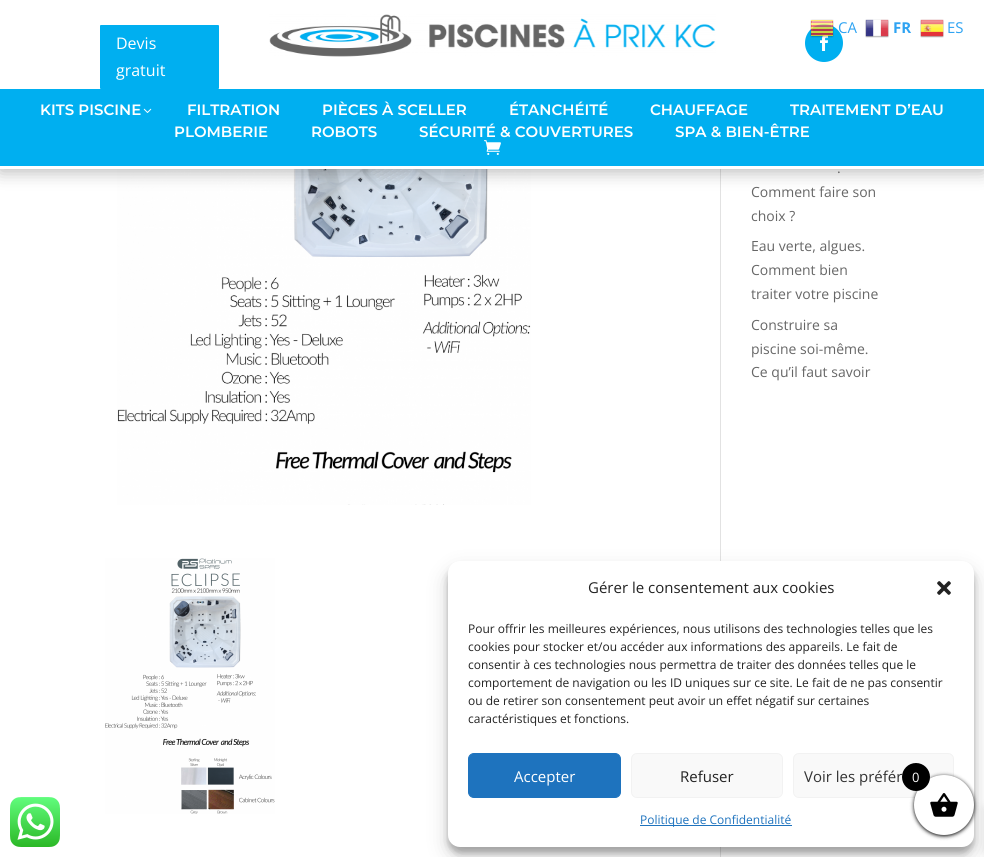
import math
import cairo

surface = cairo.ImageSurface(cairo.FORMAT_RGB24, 984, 857)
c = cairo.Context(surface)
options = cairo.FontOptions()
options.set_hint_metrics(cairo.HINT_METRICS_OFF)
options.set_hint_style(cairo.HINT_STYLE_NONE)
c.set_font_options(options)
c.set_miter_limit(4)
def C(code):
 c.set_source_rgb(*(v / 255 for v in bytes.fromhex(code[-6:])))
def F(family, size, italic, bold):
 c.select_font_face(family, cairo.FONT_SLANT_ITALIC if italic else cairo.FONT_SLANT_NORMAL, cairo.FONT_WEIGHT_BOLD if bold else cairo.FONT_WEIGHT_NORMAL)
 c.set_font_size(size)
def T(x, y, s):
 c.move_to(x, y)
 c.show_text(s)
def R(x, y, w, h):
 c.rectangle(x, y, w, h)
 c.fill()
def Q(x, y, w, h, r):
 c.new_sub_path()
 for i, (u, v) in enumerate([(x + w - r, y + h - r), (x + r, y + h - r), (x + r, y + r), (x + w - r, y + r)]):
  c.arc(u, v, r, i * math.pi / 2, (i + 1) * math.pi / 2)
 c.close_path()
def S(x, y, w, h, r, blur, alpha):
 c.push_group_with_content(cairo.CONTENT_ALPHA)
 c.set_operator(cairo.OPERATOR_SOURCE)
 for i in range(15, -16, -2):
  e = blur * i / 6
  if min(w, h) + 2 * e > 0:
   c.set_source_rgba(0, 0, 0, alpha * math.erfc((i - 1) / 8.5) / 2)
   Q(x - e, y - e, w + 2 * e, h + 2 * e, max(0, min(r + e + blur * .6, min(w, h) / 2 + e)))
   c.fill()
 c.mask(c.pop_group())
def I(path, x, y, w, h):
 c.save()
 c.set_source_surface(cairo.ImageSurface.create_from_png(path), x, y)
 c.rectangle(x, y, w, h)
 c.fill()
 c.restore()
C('ffffff')
c.paint()
C('e2e2e2')
R(720,169,1,688)
I('8.png',117,169,414,336)
C('000000')
S(0,2,984,169,0,9,.3)
C('ffffff')
R(0,0,984,169)
C('00aff0')
c.arc(824,43,19,0,2 * math.pi)
c.fill()
I('5.png',820,35,8,16)
I('1.png',810,19,24,19)
F('Open Sans',15,0,0)
C('2ea3f2')
T(838,33,'CA')
I('2.png',865,19,24,19)
F('Open Sans',15,0,1)
T(893,33,'FR')
I('3.png',920,19,24,19)
F('Open Sans',15,0,0)
T(947,33,'ES')
C('00aff0')
Q(99,24,121,66,2)
c.fill_preserve()
C('ffffff')
c.stroke()
F('Open Sans',16,0,0)
T(116,49,'Devis')
T(116,76,'gratuit')
I('4.png',269,14,447,43)
C('00aff0')
R(0,89,984,77)
F('Montserrat Thin',15,0,0)
C('ffffff')
T(40,115,'KITS PISCINE')
I('6.png',143,108,9,5)
T(187,115,'FILTRATION')
T(322,115,'PIÈCES À SCELLER')
T(509,115,'ÉTANCHÉITÉ')
T(650,115,'CHAUFFAGE')
T(790,115,'TRAITEMENT D’EAU')
T(174,137,'PLOMBERIE')
T(311,137,'ROBOTS')
T(419,137,'SÉCURITÉ & COUVERTURES')
T(675,137,'SPA & BIEN-ÊTRE')
I('7.png',484,140,17,15)
I('9.png',105,558,170,256)
F('Open Sans',14,0,0)
C('666666')
T(837,173,'.')
T(751,197,'Comment faire son')
T(751,221,'choix ?')
T(751,251,'Eau verte, algues.')
T(751,275,'Comment bien')
T(751,299,'traiter votre piscine')
T(751,330,'Construire sa')
T(751,354,'piscine soi-même.')
T(751,377,'Ce qu’il faut savoir')
C('000000')
S(448,567,526,286,12,3,.23)
S(448,571,526,286,12,10,.19)
C('ffffff')
Q(448,561,526,286,12)
c.fill()
F('Open Sans',15,0,0)
C('222222')
T(588,593,'Gérer le consentement aux cookies')
I('10.png',937,581,14,14)
F('Open Sans',12,0,0)
T(468,633,'Pour offrir les meilleures expériences, nous utilisons des technologies telles que les')
T(468,651,'cookies pour stocker et/ou accéder aux informations des appareils. Le fait de')
T(468,669,'consentir à ces technologies nous permettra de traiter des données telles que le')
T(468,687,'comportement de navigation ou les ID uniques sur ce site. Le fait de ne pas consentir')
T(468,705,'ou de retirer son consentement peut avoir un effet négatif sur certaines')
T(468,723,'caractéristiques et fonctions.')
C('1e73be')
Q(468.5,753.5,152,44,5.5)
c.fill_preserve()
c.set_line_width(1)
c.stroke()
F('Open Sans',15,0,0)
C('ffffff')
T(514,782,'Accepter')
C('f9f9f9')
Q(631.5,753.5,151,44,5.5)
c.fill_preserve()
C('f2f2f2')
c.stroke()
C('222222')
T(680,782,'Refuser')
C('f9f9f9')
Q(793.5,753.5,160,44,5.5)
c.fill_preserve()
C('f2f2f2')
c.stroke()
C('333333')
T(804,782,'Voir les préfér')
C('1e73be')
R(640,825,152,1)
F('Open Sans',12,0,0)
T(640,824,'Politique de Confidentialité')
C('000000')
S(914,776,60,60,30,2,1)
S(984,808,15,44,0,5,.1)
C('ffffff')
c.arc(944,805,30,0,2 * math.pi)
c.fill()
C('000000')
c.arc(916,777,14,0,2 * math.pi)
c.fill()
F('Open Sans',13,0,0)
C('ffffff')
T(912,782,'0')
I('11.png',930,793,28,24)
I('12.png',10,797,50,50)
surface.write_to_png('o.png')
